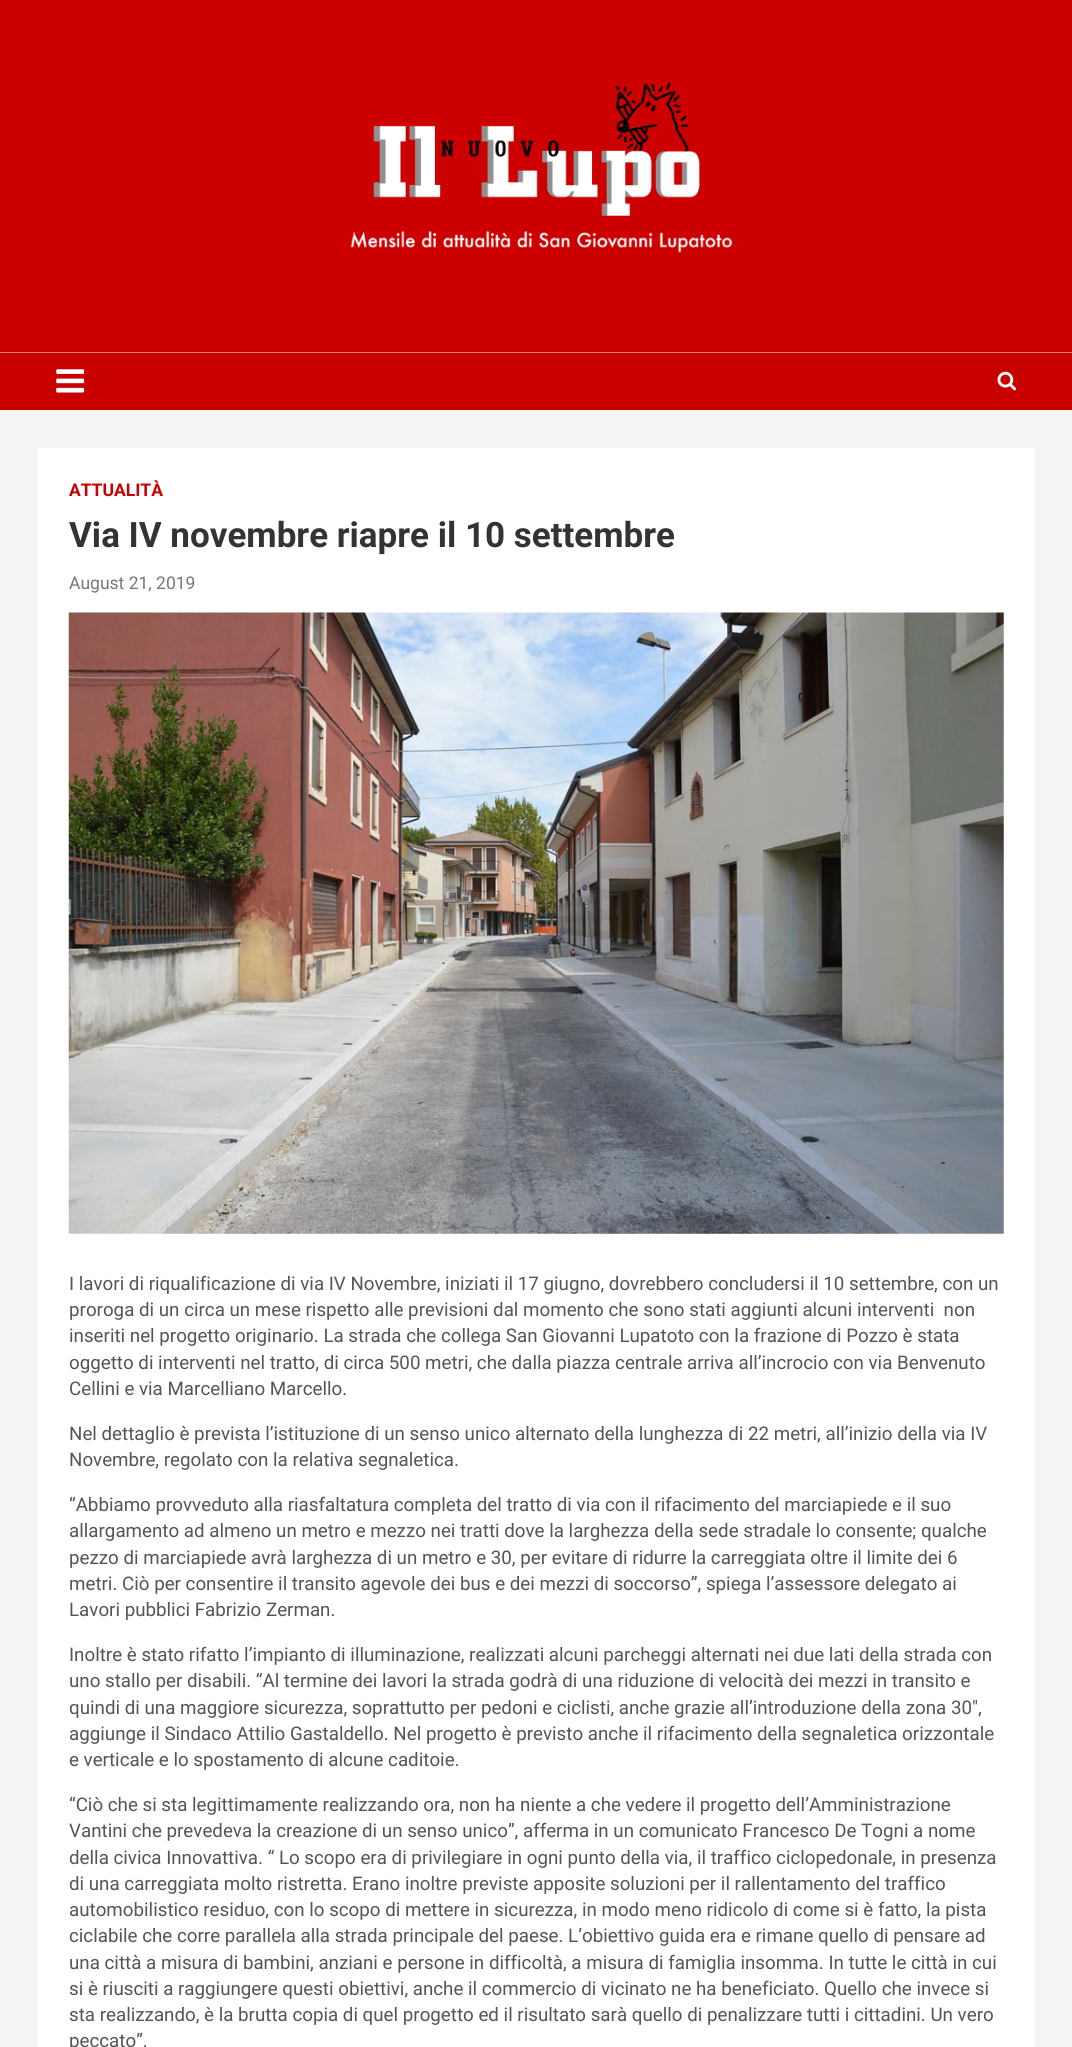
import math
import cairo

surface = cairo.ImageSurface(cairo.FORMAT_RGB24, 1072, 2047)
c = cairo.Context(surface)
options = cairo.FontOptions()
options.set_hint_metrics(cairo.HINT_METRICS_OFF)
options.set_hint_style(cairo.HINT_STYLE_NONE)
c.set_font_options(options)
c.set_miter_limit(4)
def C(code):
 c.set_source_rgb(*(v / 255 for v in bytes.fromhex(code[-6:])))
def F(family, size, italic, bold):
 c.select_font_face(family, cairo.FONT_SLANT_ITALIC if italic else cairo.FONT_SLANT_NORMAL, cairo.FONT_WEIGHT_BOLD if bold else cairo.FONT_WEIGHT_NORMAL)
 c.set_font_size(size)
def T(x, y, s):
 c.move_to(x, y)
 c.show_text(s)
def R(x, y, w, h):
 c.rectangle(x, y, w, h)
 c.fill()
def I(path, x, y, w, h):
 c.save()
 c.set_source_surface(cairo.ImageSurface.create_from_png(path), x, y)
 c.rectangle(x, y, w, h)
 c.fill()
 c.restore()
C('f4f4f4')
c.paint()
C('ffffff')
R(0,352,1072,1)
I('1.png',0,0,1072,353)
C('c80000')
R(0,353,1072,57)
I('2.png',56,369,29,24)
I('3.png',997,371,19,20)
C('ffffff')
R(38,448,997,1599)
F('Roboto',17.5,0,1)
C('c80000')
T(69,496,'ATTUALITÀ')
F('Roboto',35,0,1)
C('333333')
T(69,547,'Via IV novembre riapre il 10 settembre')
F('Roboto',17.5,0,0)
C('777777')
T(69,589,'August 21, 2019')
I('4.png',68,612,936,622)
F('Roboto',18.75,0,0)
C('555555')
T(69,1290,'I lavori di riqualificazione di via IV Novembre, iniziati il 17 giugno, dovrebbero concludersi il 10 settembre, con un')
T(69,1316,'proroga di un circa un mese rispetto alle previsioni dal momento che sono stati aggiunti alcuni interventi  non')
T(69,1342,'inseriti nel progetto originario. La strada che collega San Giovanni Lupatoto con la frazione di Pozzo è stata')
T(69,1369,'oggetto di interventi nel tratto, di circa 500 metri, che dalla piazza centrale arriva all’incrocio con via Benvenuto')
T(69,1395,'Cellini e via Marcelliano Marcello.')
T(69,1440,'Nel dettaglio è prevista l’istituzione di un senso unico alternato della lunghezza di 22 metri, all’inizio della via IV')
T(69,1466,'Novembre, regolato con la relativa segnaletica.')
T(69,1511,'“Abbiamo provveduto alla riasfaltatura completa del tratto di via con il rifacimento del marciapiede e il suo')
T(69,1537,'allargamento ad almeno un metro e mezzo nei tratti dove la larghezza della sede stradale lo consente; qualche')
T(69,1564,'pezzo di marciapiede avrà larghezza di un metro e 30, per evitare di ridurre la carreggiata oltre il limite dei 6')
T(69,1590,'metri. Ciò per consentire il transito agevole dei bus e dei mezzi di soccorso”, spiega l’assessore delegato ai')
T(69,1616,'Lavori pubblici Fabrizio Zerman.')
T(69,1661,'Inoltre è stato rifatto l’impianto di illuminazione, realizzati alcuni parcheggi alternati nei due lati della strada con')
T(69,1687,'uno stallo per disabili. “Al termine dei lavori la strada godrà di una riduzione di velocità dei mezzi in transito e')
T(69,1714,'quindi di una maggiore sicurezza, soprattutto per pedoni e ciclisti, anche grazie all’introduzione della zona 30″,')
T(69,1740,'aggiunge il Sindaco Attilio Gastaldello. Nel progetto è previsto anche il rifacimento della segnaletica orizzontale')
T(69,1766,'e verticale e lo spostamento di alcune caditoie.')
T(69,1811,'“Ciò che si sta legittimamente realizzando ora, non ha niente a che vedere il progetto dell’Amministrazione')
T(69,1837,'Vantini che prevedeva la creazione di un senso unico”, afferma in un comunicato Francesco De Togni a nome')
T(69,1864,'della civica Innovattiva. “ Lo scopo era di privilegiare in ogni punto della via, il traffico ciclopedonale, in presenza')
T(69,1890,'di una carreggiata molto ristretta. Erano inoltre previste apposite soluzioni per il rallentamento del traffico')
T(69,1916,'automobilistico residuo, con lo scopo di mettere in sicurezza, in modo meno ridicolo di come si è fatto, la pista')
T(69,1942,'ciclabile che corre parallela alla strada principale del paese. L’obiettivo guida era e rimane quello di pensare ad')
T(69,1969,'una città a misura di bambini, anziani e persone in difficoltà, a misura di famiglia insomma. In tutte le città in cui')
T(69,1995,'si è riusciti a raggiungere questi obiettivi, anche il commercio di vicinato ne ha beneficiato. Quello che invece si')
T(69,2021,'sta realizzando, è la brutta copia di quel progetto ed il risultato sarà quello di penalizzare tutti i cittadini. Un vero')
T(69,2047,'peccato”.')
surface.write_to_png('o.png')
